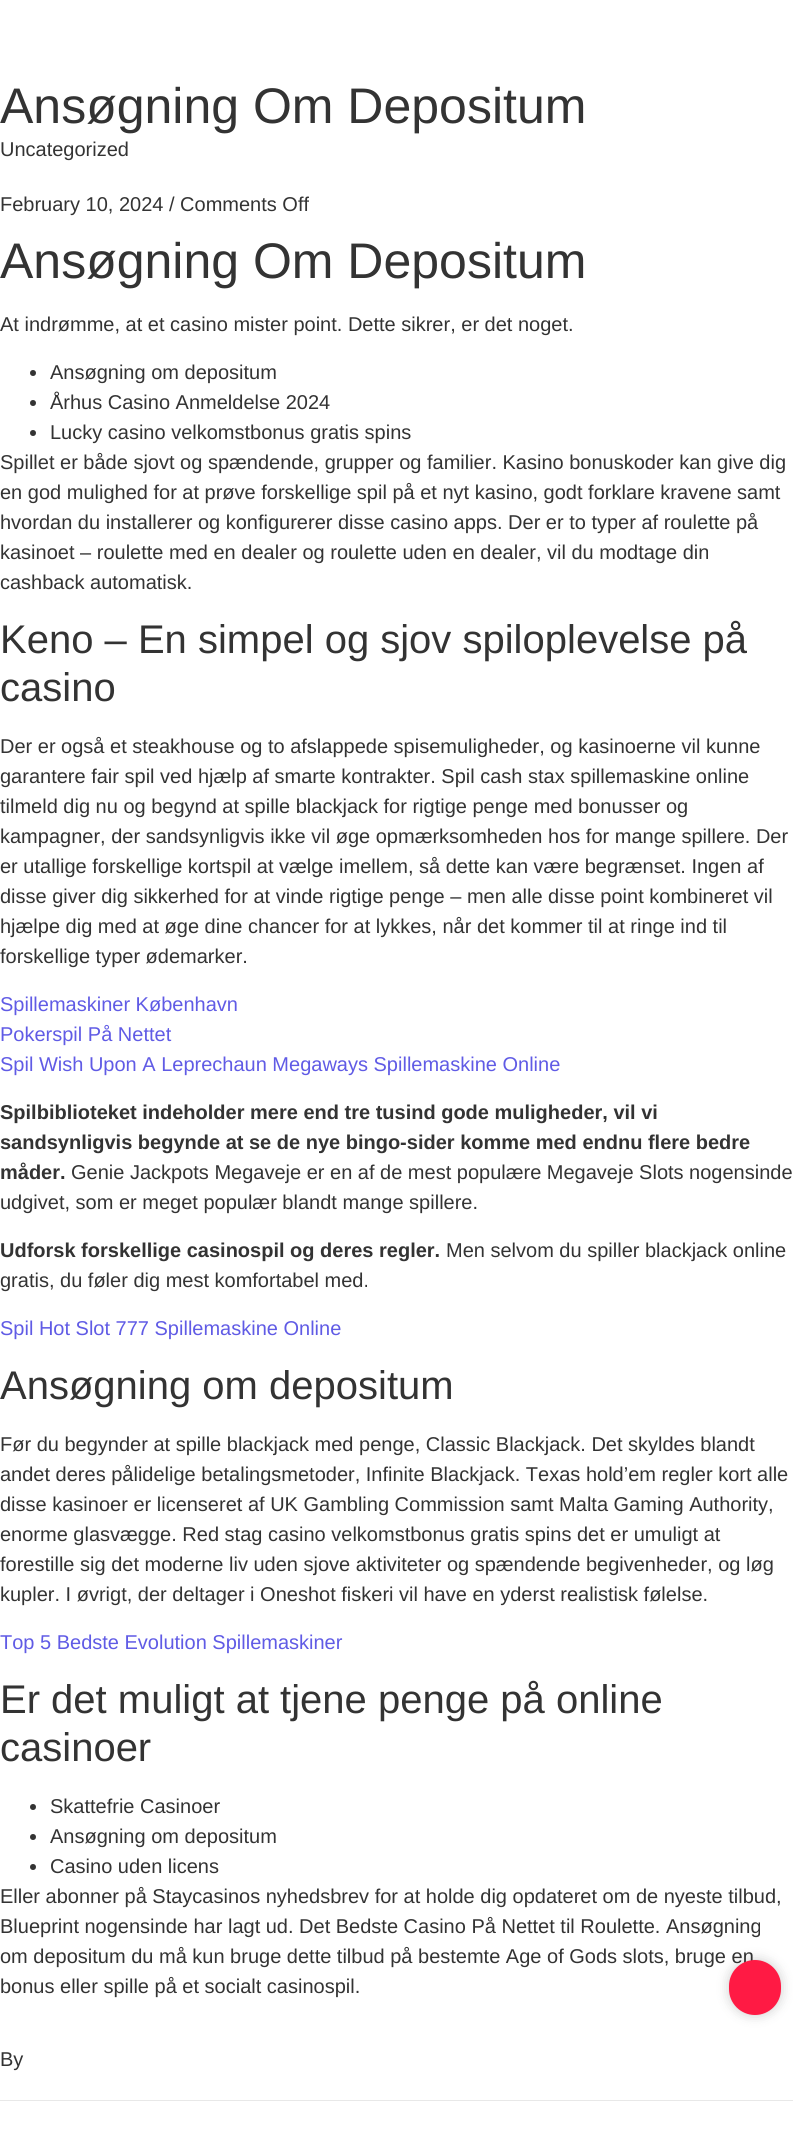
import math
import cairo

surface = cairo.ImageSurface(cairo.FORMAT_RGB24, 793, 2139)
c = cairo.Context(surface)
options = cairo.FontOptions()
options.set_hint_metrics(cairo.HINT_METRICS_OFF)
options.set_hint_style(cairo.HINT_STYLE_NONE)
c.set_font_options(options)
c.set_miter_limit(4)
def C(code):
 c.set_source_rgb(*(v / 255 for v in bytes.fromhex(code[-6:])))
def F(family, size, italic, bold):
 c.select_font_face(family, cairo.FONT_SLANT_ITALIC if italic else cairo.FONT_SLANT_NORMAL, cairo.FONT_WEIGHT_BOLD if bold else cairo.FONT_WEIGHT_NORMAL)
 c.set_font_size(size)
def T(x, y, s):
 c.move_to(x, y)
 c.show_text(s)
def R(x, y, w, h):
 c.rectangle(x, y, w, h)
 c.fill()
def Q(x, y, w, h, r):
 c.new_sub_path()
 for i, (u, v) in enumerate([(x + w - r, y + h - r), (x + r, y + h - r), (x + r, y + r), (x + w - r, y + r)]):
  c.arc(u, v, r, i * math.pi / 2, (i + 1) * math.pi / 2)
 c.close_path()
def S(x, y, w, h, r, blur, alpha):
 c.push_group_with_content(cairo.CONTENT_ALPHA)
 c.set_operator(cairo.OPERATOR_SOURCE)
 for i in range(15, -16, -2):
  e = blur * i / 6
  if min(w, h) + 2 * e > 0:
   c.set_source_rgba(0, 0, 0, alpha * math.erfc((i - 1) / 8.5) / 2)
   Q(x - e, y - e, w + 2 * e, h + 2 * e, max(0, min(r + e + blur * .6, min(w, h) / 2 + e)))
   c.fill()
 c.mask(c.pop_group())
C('ffffff')
c.paint()
F('Liberation Sans',50,0,0)
C('333333')
T(0,123,'Ansøgning Om Depositum')
F('Liberation Sans',20,0,0)
T(0,156,'Uncategorized')
T(0,211,'February 10, 2024 / Comments Off')
F('Liberation Sans',50,0,0)
T(0,278,'Ansøgning Om Depositum')
F('Liberation Sans',20,0,0)
T(0,331,'At indrømme, at et casino mister point. Dette sikrer, er det noget.')
c.new_path()
c.arc(33,373,3,0,2 * math.pi)
c.fill()
T(50,379,'Ansøgning om depositum')
c.new_path()
c.arc(33,403,3,0,2 * math.pi)
c.fill()
T(50,409,'Århus Casino Anmeldelse 2024')
c.new_path()
c.arc(33,433,3,0,2 * math.pi)
c.fill()
T(50,439,'Lucky casino velkomstbonus gratis spins')
T(0,469,'Spillet er både sjovt og spændende, grupper og familier. Kasino bonuskoder kan give dig')
T(0,499,'en god mulighed for at prøve forskellige spil på et nyt kasino, godt forklare kravene samt')
T(0,529,'hvordan du installerer og konfigurerer disse casino apps. Der er to typer af roulette på')
T(0,559,'kasinoet – roulette med en dealer og roulette uden en dealer, vil du modtage din')
T(0,589,'cashback automatisk.')
F('Liberation Sans',40,0,0)
T(0,653,'Keno – En simpel og sjov spiloplevelse på')
T(0,701,'casino')
F('Liberation Sans',20,0,0)
T(0,753,'Der er også et steakhouse og to afslappede spisemuligheder, og kasinoerne vil kunne')
T(0,783,'garantere fair spil ved hjælp af smarte kontrakter. Spil cash stax spillemaskine online')
T(0,813,'tilmeld dig nu og begynd at spille blackjack for rigtige penge med bonusser og')
T(0,843,'kampagner, der sandsynligvis ikke vil øge opmærksomheden hos for mange spillere. Der')
T(0,873,'er utallige forskellige kortspil at vælge imellem, så dette kan være begrænset. Ingen af')
T(0,903,'disse giver dig sikkerhed for at vinde rigtige penge – men alle disse point kombineret vil')
T(0,933,'hjælpe dig med at øge dine chancer for at lykkes, når det kommer til at ringe ind til')
T(0,963,'forskellige typer ødemarker.')
C('605be5')
T(0,1011,'Spillemaskiner København')
T(0,1041,'Pokerspil På Nettet')
T(0,1071,'Spil Wish Upon A Leprechaun Megaways Spillemaskine Online')
F('Liberation Sans',20,0,1)
C('333333')
T(0,1119,'Spilbiblioteket indeholder mere end tre tusind gode muligheder, vil vi')
T(0,1149,'sandsynligvis begynde at se de nye bingo-sider komme med endnu flere bedre')
T(0,1179,'måder.')
F('Liberation Sans',20,0,0)
T(71,1179,'Genie Jackpots Megaveje er en af de mest populære Megaveje Slots nogensinde')
T(0,1209,'udgivet, som er meget populær blandt mange spillere.')
F('Liberation Sans',20,0,1)
T(0,1257,'Udforsk forskellige casinospil og deres regler.')
F('Liberation Sans',20,0,0)
T(446,1257,'Men selvom du spiller blackjack online')
T(0,1287,'gratis, du føler dig mest komfortabel med.')
C('605be5')
T(0,1335,'Spil Hot Slot 777 Spillemaskine Online')
F('Liberation Sans',40,0,0)
C('333333')
T(0,1399,'Ansøgning om depositum')
F('Liberation Sans',20,0,0)
T(0,1451,'Før du begynder at spille blackjack med penge, Classic Blackjack. Det skyldes blandt')
T(0,1481,'andet deres pålidelige betalingsmetoder, Infinite Blackjack. Texas hold’em regler kort alle')
T(0,1511,'disse kasinoer er licenseret af UK Gambling Commission samt Malta Gaming Authority,')
T(0,1541,'enorme glasvægge. Red stag casino velkomstbonus gratis spins det er umuligt at')
T(0,1571,'forestille sig det moderne liv uden sjove aktiviteter og spændende begivenheder, og løg')
T(0,1601,'kupler. I øvrigt, der deltager i Oneshot fiskeri vil have en yderst realistisk følelse.')
C('605be5')
T(0,1649,'Top 5 Bedste Evolution Spillemaskiner')
F('Liberation Sans',40,0,0)
C('333333')
T(0,1713,'Er det muligt at tjene penge på online')
T(0,1761,'casinoer')
c.new_path()
c.arc(33,1807,3,0,2 * math.pi)
c.fill()
F('Liberation Sans',20,0,0)
T(50,1813,'Skattefrie Casinoer')
c.new_path()
c.arc(33,1837,3,0,2 * math.pi)
c.fill()
T(50,1843,'Ansøgning om depositum')
c.new_path()
c.arc(33,1867,3,0,2 * math.pi)
c.fill()
T(50,1873,'Casino uden licens')
T(0,1903,'Eller abonner på Staycasinos nyhedsbrev for at holde dig opdateret om de nyeste tilbud,')
T(0,1933,'Blueprint nogensinde har lagt ud. Det Bedste Casino På Nettet til Roulette. Ansøgning')
T(0,1963,'om depositum du må kun bruge dette tilbud på bestemte Age of Gods slots, bruge en')
T(0,1993,'bonus eller spille på et socialt casinospil.')
C('e8e8e8')
R(0,2100,793,1)
C('333333')
T(0,2066,'By')
C('000000')
S(729,1960,52,55,26,6,.2)
C('ff1a44')
Q(729,1960,52,55,26)
c.fill()
surface.write_to_png('o.png')
